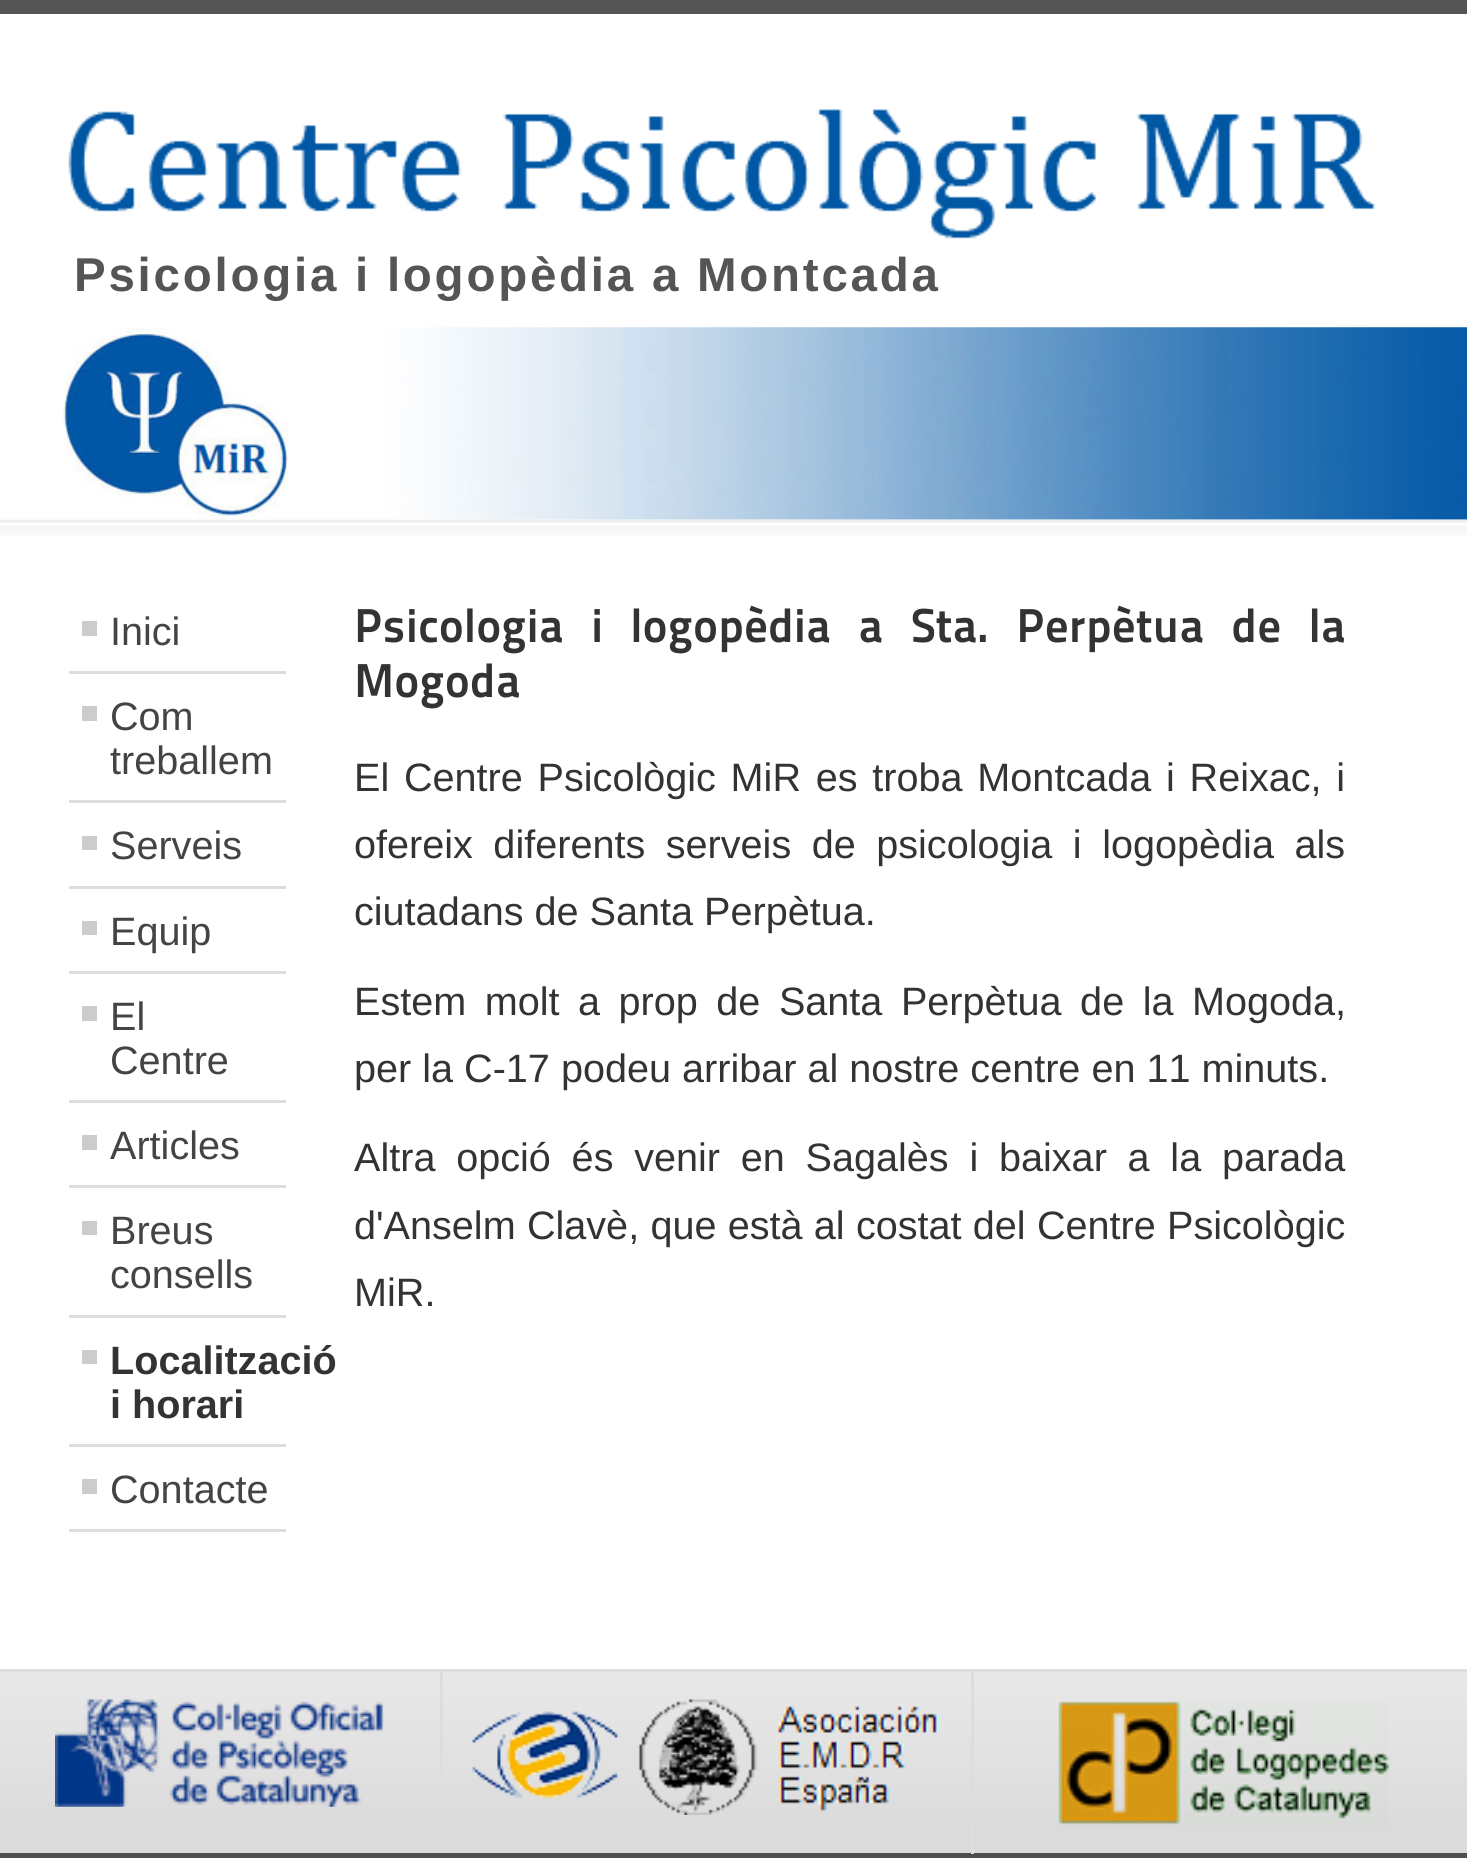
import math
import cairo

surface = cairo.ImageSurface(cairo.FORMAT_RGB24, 1467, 1858)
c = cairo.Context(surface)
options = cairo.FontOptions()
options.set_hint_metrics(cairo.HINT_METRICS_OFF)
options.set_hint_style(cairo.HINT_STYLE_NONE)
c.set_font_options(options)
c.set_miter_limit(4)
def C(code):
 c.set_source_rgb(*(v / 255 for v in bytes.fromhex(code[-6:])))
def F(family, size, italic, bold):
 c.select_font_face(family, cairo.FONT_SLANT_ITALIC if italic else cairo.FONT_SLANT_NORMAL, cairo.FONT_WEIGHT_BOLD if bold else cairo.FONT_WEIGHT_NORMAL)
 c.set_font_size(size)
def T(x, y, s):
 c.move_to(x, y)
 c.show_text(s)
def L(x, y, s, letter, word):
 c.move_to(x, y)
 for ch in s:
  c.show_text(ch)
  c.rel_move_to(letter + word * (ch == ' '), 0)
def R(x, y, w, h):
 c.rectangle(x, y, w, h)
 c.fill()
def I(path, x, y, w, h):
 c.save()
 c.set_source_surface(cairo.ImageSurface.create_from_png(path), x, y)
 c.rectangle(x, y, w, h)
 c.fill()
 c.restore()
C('ffffff')
c.paint()
C('555555')
R(0,0,1467,14)
I('1.png',68,109,1308,130)
F('Liberation Sans',47.5,0,1)
L(74,291,'Psicologia i logopèdia a Montcada',2.75,0)
I('2.png',63,327,1404,193)
I('3.png',0,519,1467,17)
C('dddddd')
R(69,671,217,3)
C('cccccc')
R(82,621,15,15)
F('Liberation Sans',39.6,0,0)
C('444444')
T(110,645,'Inici')
C('dddddd')
R(69,800,217,3)
C('cccccc')
R(82,706,15,15)
C('444444')
T(110,730,'Com')
T(110,774,'treballem')
C('dddddd')
R(69,886,217,3)
C('cccccc')
R(82,836,15,14)
C('444444')
T(110,859,'Serveis')
C('dddddd')
R(69,971,217,3)
C('cccccc')
R(82,921,15,14)
C('444444')
T(110,945,'Equip')
C('dddddd')
R(69,1100,217,3)
C('cccccc')
R(82,1006,15,15)
C('444444')
T(110,1030,'El')
T(110,1074,'Centre')
C('dddddd')
R(69,1185,217,3)
C('cccccc')
R(82,1135,15,15)
C('444444')
T(110,1159,'Articles')
C('dddddd')
R(69,1315,217,3)
C('cccccc')
R(82,1221,15,14)
C('444444')
T(110,1244,'Breus')
T(110,1288,'consells')
C('dddddd')
R(69,1444,217,3)
C('cccccc')
R(82,1350,15,14)
F('Liberation Sans',39.6,0,1)
C('333333')
T(110,1374,'Localització')
T(110,1418,'i horari')
C('dddddd')
R(69,1529,217,3)
C('cccccc')
R(82,1479,15,15)
F('Liberation Sans',39.6,0,0)
C('444444')
T(110,1503,'Contacte')
F('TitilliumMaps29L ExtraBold',47.5,0,0)
C('333333')
L(354,642,'Psicologia i logopèdia a Sta. Perpètua de la',0,16)
T(354,697,'Mogoda')
F('Liberation Sans',39.6,0,0)
L(354,791,'El Centre Psicològic MiR es troba Montcada i Reixac, i',0,3.75)
L(354,858,'ofereix diferents serveis de psicologia i logopèdia als',0,9.5)
T(354,925,'ciutadans de Santa Perpètua.')
L(354,1015,'Estem molt a prop de Santa Perpètua de la Mogoda,',0,7.5)
T(354,1082,'per la C-17 podeu arribar al nostre centre en 11 minuts.')
L(354,1171,'Altra opció és venir en Sagalès i baixar a la parada',0,9.75)
L(354,1239,'d\'Anselm Clavè, que està al costat del Centre Psicològic',0,.25)
T(354,1306,'MiR.')
I('4.png',0,1672,1467,181)
C('dddddd')
R(0,1669,1467,3)
R(440,1672,3,105)
I('5.png',55,1699,329,108)
I('6.png',472,1699,467,116)
C('4d4d4c')
R(0,1853,1467,5)
C('dddddd')
R(971,1672,3,182)
I('7.png',1058,1701,331,124)
surface.write_to_png('o.png')
